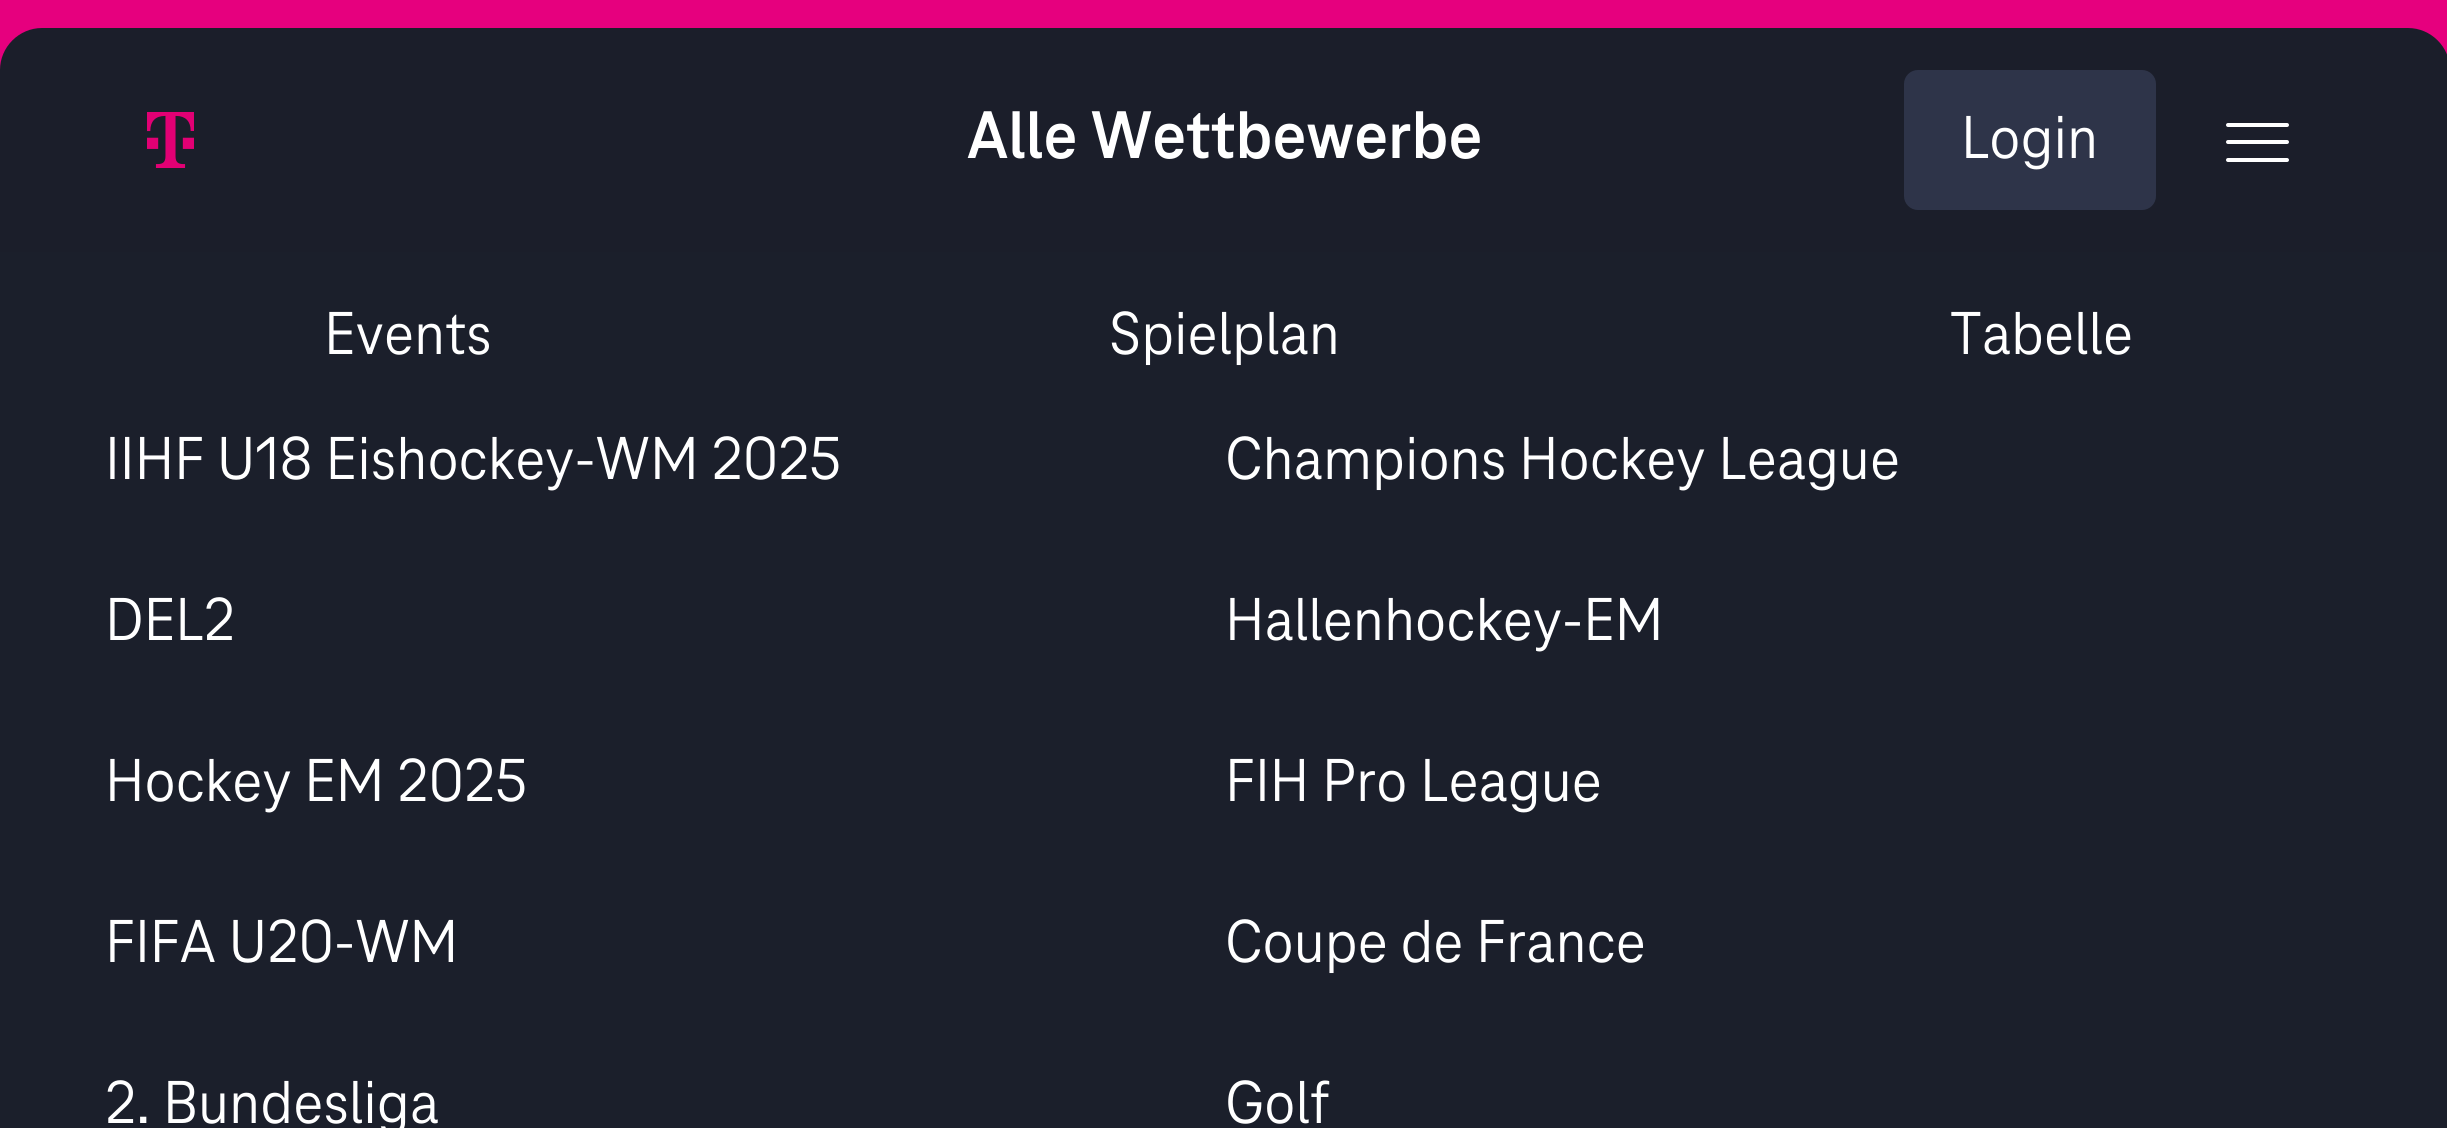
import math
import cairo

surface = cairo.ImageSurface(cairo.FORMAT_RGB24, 2447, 1128)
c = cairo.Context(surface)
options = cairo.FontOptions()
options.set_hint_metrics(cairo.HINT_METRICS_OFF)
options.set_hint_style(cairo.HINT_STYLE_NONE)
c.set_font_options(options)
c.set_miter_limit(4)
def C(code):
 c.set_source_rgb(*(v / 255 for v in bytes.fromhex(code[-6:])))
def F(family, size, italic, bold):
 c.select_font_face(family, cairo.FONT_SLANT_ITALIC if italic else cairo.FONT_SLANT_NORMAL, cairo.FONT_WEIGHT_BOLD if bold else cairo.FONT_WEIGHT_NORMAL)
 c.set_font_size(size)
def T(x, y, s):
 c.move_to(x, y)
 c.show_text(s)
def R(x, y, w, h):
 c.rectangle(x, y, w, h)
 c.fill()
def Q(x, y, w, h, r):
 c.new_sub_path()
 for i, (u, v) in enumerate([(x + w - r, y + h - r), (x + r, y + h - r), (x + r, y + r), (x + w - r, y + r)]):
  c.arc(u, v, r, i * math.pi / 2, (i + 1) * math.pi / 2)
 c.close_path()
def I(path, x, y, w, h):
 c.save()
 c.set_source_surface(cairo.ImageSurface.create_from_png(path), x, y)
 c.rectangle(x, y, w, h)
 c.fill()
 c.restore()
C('1b1f2b')
c.paint()
C('e6007e')
R(0,0,2447,70)
C('1b1e2a')
c.new_path()
c.move_to(42,28)
c.line_to(2408,28)
c.curve_to(2431,28,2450,47,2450,70)
c.line_to(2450,252)
c.line_to(0,252)
c.line_to(0,70)
c.curve_to(0,47,19,28,42,28)
c.close_path()
c.fill()
I('1.png',147,112,47,56)
F('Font',70,0,1)
C('ffffff')
T(967,158,'Alle Wettbewerbe')
C('2e3449')
Q(1904,70,252,140,14)
c.fill()
F('Font',63,0,0)
C('ffffff')
T(1961,158,'Login')
Q(2226,123,63,4,2)
c.fill()
Q(2226,140,63,4,2)
c.fill()
Q(2226,158,63,4,2)
c.fill()
T(324,354,'Events')
T(1109,354,'Spielplan')
T(1950,354,'Tabelle')
T(105,479,'IIHF U18 Eishockey-WM 2025')
T(1225,479,'Champions Hockey League')
T(105,640,'DEL2')
T(1225,640,'Hallenhockey-EM')
T(105,801,'Hockey EM 2025')
T(1225,801,'FIH Pro League')
T(105,962,'FIFA U20-WM')
T(1225,962,'Coupe de France')
T(105,1123,'2. Bundesliga')
T(1225,1123,'Golf')
surface.write_to_png('o.png')
